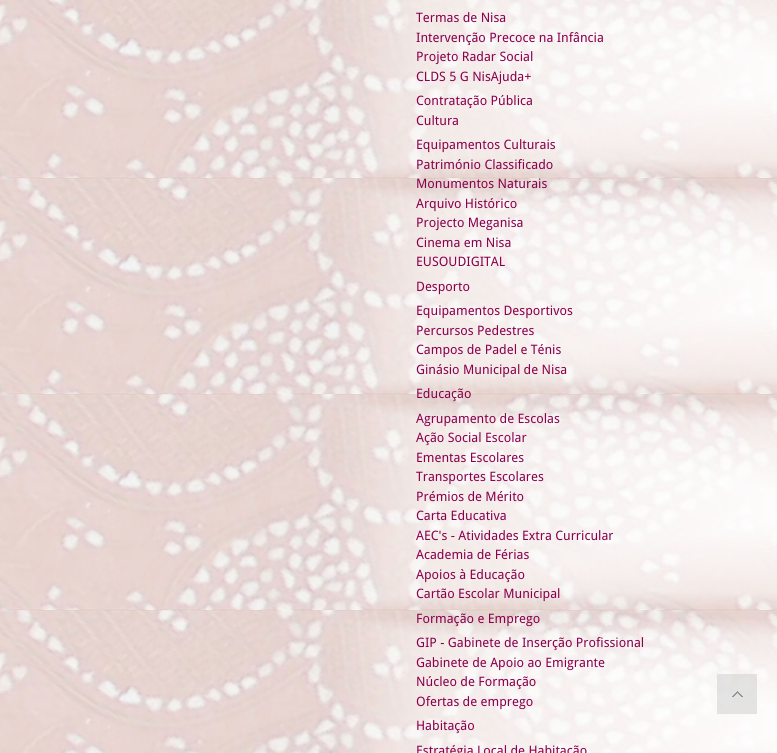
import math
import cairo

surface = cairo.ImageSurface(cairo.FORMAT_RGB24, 777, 753)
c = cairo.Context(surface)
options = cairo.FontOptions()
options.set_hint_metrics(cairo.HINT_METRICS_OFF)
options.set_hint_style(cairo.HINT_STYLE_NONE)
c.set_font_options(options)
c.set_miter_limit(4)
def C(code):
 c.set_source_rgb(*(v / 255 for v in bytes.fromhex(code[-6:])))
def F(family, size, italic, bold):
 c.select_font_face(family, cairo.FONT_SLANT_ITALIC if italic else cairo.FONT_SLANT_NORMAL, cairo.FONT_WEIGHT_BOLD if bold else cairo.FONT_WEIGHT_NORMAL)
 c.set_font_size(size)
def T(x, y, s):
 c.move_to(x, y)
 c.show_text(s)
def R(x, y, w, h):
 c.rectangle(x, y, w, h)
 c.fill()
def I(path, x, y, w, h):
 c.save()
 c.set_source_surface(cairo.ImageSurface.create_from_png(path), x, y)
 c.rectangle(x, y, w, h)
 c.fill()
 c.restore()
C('ffffff')
c.paint()
I('1.png',0,0,777,753)
F('Droid Sans',13,0,0)
C('8a004d')
T(416,22,'Termas de Nisa')
T(416,42,'Intervenção Precoce na Infância')
T(416,61,'Projeto Radar Social')
T(416,81,'CLDS 5 G NisAjuda+')
T(416,105,'Contratação Pública')
T(416,125,'Cultura')
T(416,149,'Equipamentos Culturais')
T(416,169,'Património Classificado')
T(416,188,'Monumentos Naturais')
T(416,208,'Arquivo Histórico')
T(416,227,'Projecto Meganisa')
T(416,247,'Cinema em Nisa')
T(416,266,'EUSOUDIGITAL')
T(416,291,'Desporto')
T(416,315,'Equipamentos Desportivos')
T(416,335,'Percursos Pedestres')
T(416,354,'Campos de Padel e Ténis')
T(416,374,'Ginásio Municipal de Nisa')
T(416,398,'Educação')
T(416,423,'Agrupamento de Escolas')
T(416,442,'Ação Social Escolar')
T(416,462,'Ementas Escolares')
T(416,481,'Transportes Escolares')
T(416,501,'Prémios de Mérito')
T(416,520,'Carta Educativa')
T(416,540,'AEC\'s - Atividades Extra Curricular')
T(416,559,'Academia de Férias')
T(416,579,'Apoios à Educação')
T(416,598,'Cartão Escolar Municipal')
T(416,623,'Formação e Emprego')
T(416,647,'GIP - Gabinete de Inserção Profissional')
T(416,667,'Gabinete de Apoio ao Emigrante')
T(416,686,'Núcleo de Formação')
T(416,706,'Ofertas de emprego')
T(416,730,'Habitação')
T(416,755,'Estratégia Local de Habitação')
c.set_source_rgba(0.8,0.8,0.8,0.5)
R(717,674,40,40)
I('2.png',732,691,11,6)
surface.write_to_png('o.png')
